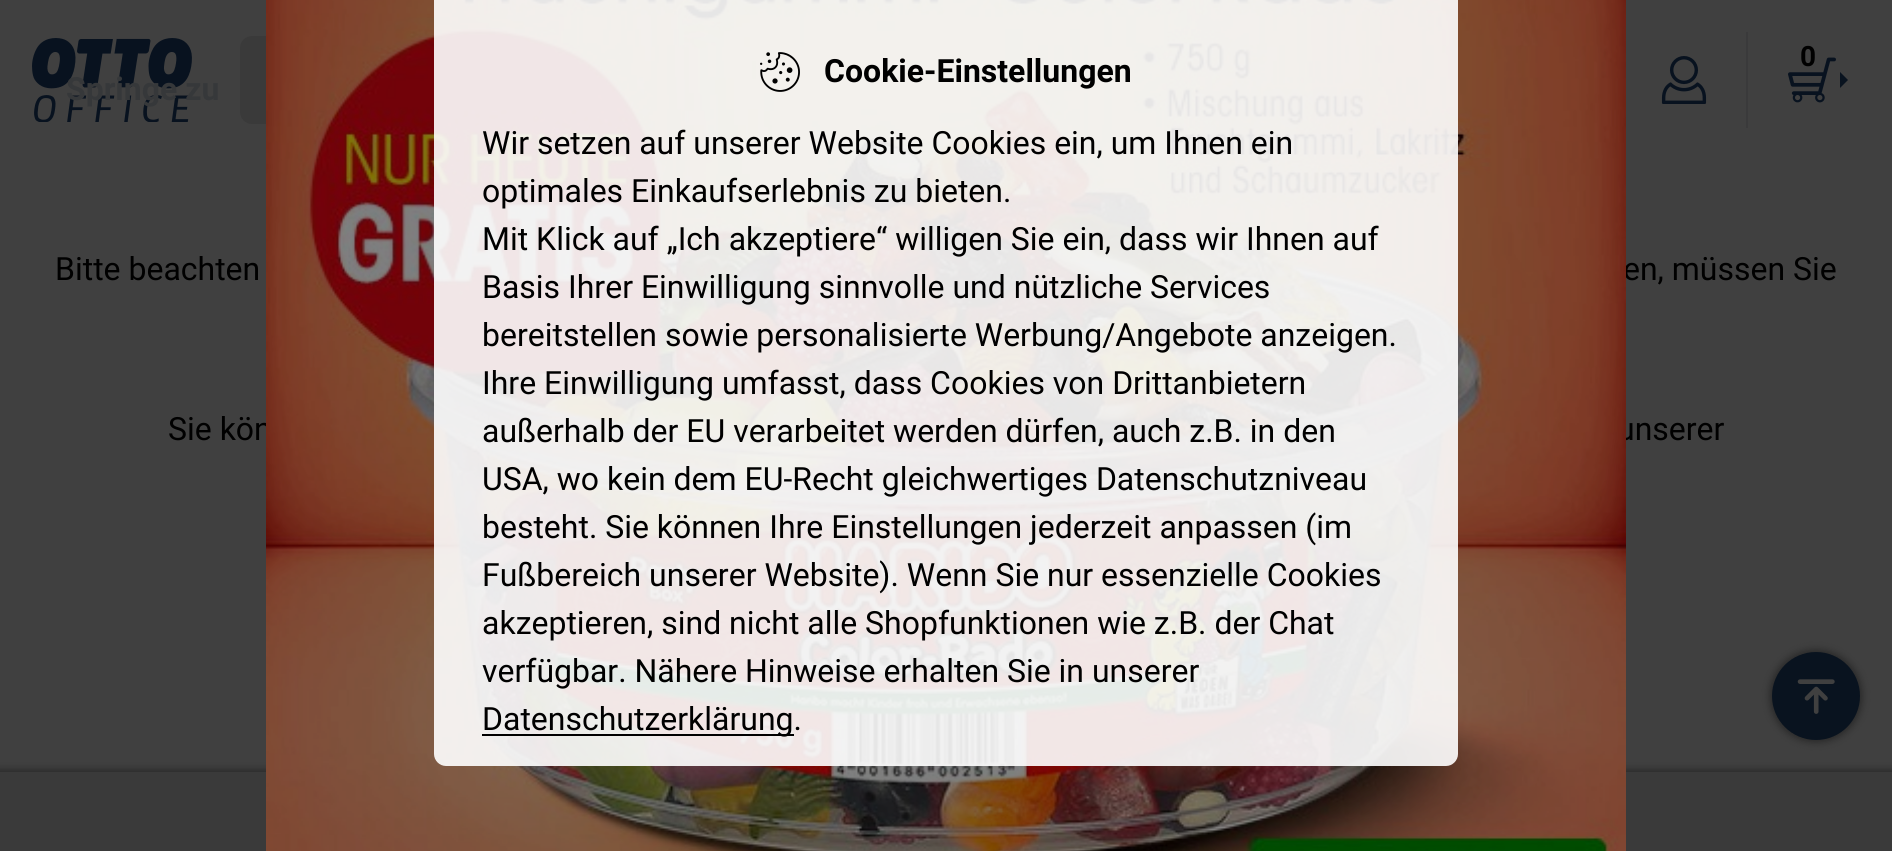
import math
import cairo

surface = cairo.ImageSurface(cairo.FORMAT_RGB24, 1892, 851)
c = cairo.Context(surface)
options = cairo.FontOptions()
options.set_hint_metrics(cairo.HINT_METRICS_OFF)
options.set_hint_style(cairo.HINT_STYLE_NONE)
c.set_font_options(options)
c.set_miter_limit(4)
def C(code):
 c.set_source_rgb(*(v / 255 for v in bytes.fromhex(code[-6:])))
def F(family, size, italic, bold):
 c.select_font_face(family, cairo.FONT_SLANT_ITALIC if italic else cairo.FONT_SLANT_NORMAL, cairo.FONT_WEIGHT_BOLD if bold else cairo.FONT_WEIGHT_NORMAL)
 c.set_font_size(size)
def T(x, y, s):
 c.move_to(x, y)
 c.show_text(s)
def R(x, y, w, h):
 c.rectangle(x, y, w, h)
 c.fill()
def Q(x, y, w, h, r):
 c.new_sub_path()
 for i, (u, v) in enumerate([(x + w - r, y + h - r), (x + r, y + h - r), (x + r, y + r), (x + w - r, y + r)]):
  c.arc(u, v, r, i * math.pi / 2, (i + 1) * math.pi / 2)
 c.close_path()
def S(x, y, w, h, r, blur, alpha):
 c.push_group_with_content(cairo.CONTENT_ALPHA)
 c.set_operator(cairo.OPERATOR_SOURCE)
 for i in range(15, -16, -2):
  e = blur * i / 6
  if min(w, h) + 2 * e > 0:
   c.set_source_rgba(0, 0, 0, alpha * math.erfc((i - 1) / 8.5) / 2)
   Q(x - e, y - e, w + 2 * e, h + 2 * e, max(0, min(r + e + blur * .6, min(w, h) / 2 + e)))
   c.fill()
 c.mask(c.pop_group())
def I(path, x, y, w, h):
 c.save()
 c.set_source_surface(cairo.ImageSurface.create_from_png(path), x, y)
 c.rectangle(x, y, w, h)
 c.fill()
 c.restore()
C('404040')
c.paint()
C('3a3a3a')
Q(240,36,88,88,12)
c.fill()
F('Roboto',32,0,0)
C('000000')
T(1623,280,'en, müssen Sie')
T(168,440,'Sie kön')
T(1617,440,'unserer')
C('000000')
S(-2,770,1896,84,0,4,.4)
C('3a3a3a')
R(0,772,1892,79)
I('1.png',266,0,1360,851)
I('2.png',32,38,160,84)
I('3.png',1661,56,46,48)
C('3a3a3b')
R(1746,32,2,96)
I('4.png',1788,57,48,46)
F('Roboto',28,0,1)
C('000000')
T(1800,66,'0')
C('09131f')
c.new_path()
c.move_to(1840,88)
c.line_to(1840,72)
c.line_to(1848,80)
c.close_path()
c.fill()
F('Roboto',32,0,0)
C('000000')
T(55,280,'Bitte beachten')
F('Roboto',32,0,1)
C('36383a')
T(66,100,'Springe zu')
c.set_source_rgba(1,1,1,0.9)
c.new_path()
c.move_to(434,0)
c.line_to(1458,0)
c.line_to(1458,754)
c.curve_to(1458,760.5,1452.5,766,1446,766)
c.line_to(446,766)
c.curve_to(439.5,766,434,760.5,434,754)
c.close_path()
c.fill()
I('5.png',760,52,40,40)
C('000000')
T(824,82,'Cookie-Einstellungen')
F('Roboto',32,0,0)
T(482,154,'Wir setzen auf unserer Website Cookies ein, um Ihnen ein')
T(482,202,'optimales Einkaufserlebnis zu bieten.')
T(482,250,'Mit Klick auf „Ich akzeptiere“ willigen Sie ein, dass wir Ihnen auf')
T(482,298,'Basis Ihrer Einwilligung sinnvolle und nützliche Services')
T(482,346,'bereitstellen sowie personalisierte Werbung/Angebote anzeigen.')
T(482,394,'Ihre Einwilligung umfasst, dass Cookies von Drittanbietern')
T(482,442,'außerhalb der EU verarbeitet werden dürfen, auch z.B. in den')
T(482,490,'USA, wo kein dem EU-Recht gleichwertiges Datenschutzniveau')
T(482,538,'besteht. Sie können Ihre Einstellungen jederzeit anpassen (im')
T(482,586,'Fußbereich unserer Website). Wenn Sie nur essenzielle Cookies')
T(482,634,'akzeptieren, sind nicht alle Shopfunktionen wie z.B. der Chat')
T(482,682,'verfügbar. Nähere Hinweise erhalten Sie in unserer')
R(482,734,312,2)
T(482,730,'Datenschutzerklärung.')
C('000000')
S(1770,650,92,92,46,4,.4)
C('09131f')
c.arc(1816,696,44,0,2 * math.pi)
c.fill()
I('6.png',1797,679,38,35)
surface.write_to_png('o.png')
